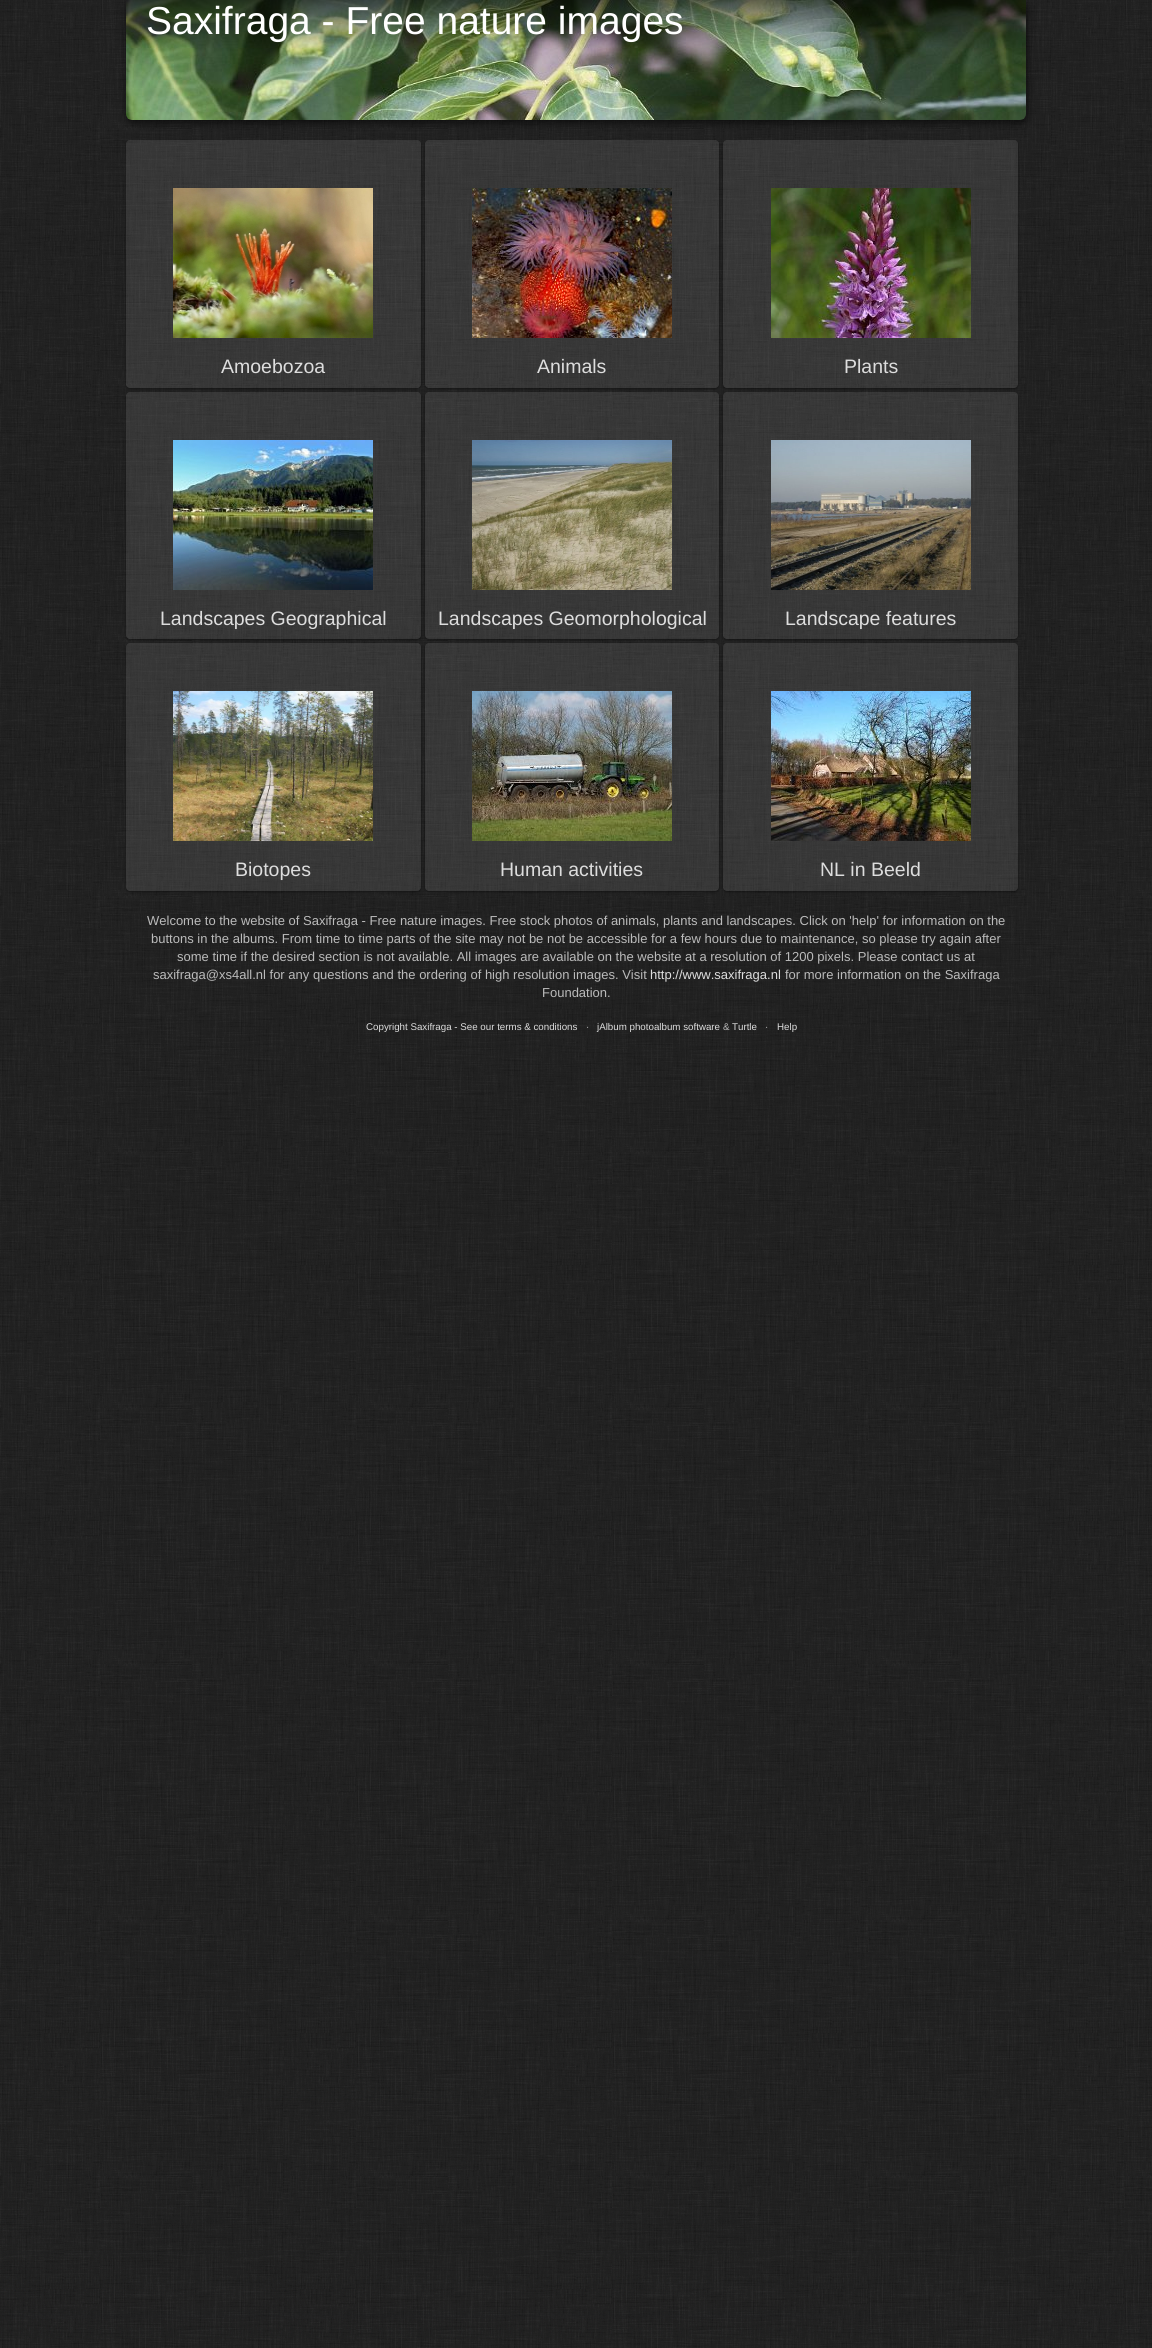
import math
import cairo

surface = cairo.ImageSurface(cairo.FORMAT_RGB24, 1152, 2348)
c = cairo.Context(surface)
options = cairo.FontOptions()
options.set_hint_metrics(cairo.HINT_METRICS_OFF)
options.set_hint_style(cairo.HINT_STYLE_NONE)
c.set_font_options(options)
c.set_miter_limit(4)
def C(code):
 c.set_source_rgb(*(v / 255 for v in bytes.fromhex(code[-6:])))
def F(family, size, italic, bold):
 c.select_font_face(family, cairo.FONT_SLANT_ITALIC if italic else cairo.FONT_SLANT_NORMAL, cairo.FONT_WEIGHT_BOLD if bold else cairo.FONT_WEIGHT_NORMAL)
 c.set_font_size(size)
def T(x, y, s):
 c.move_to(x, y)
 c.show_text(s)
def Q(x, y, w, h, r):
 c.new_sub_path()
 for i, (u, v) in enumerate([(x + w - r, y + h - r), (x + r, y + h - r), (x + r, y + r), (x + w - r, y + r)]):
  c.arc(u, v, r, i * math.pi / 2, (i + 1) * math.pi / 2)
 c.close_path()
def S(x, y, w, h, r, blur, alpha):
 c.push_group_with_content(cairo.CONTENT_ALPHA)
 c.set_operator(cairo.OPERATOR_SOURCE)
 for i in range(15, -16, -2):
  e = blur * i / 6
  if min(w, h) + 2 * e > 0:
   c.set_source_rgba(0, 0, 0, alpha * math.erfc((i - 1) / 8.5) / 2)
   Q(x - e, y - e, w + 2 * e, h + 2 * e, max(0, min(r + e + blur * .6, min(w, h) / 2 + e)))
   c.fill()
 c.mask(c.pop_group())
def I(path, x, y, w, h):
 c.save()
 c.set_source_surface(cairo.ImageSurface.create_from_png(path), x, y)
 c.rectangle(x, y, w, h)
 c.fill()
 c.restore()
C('222222')
c.paint()
I('1.png',0,0,1152,2348)
C('000000')
S(127,3,900,120,6,4,.6)
I('2.png',126,0,900,120)
F('Liberation Sans',39,0,0)
C('ffffff')
T(146,34,'Saxifraga - Free nature images')
c.save()
c.set_fill_rule(cairo.FILL_RULE_EVEN_ODD)
c.new_path()
c.move_to(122,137)
c.line_to(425,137)
c.line_to(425,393)
c.line_to(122,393)
c.close_path()
c.move_to(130,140)
c.line_to(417,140)
c.curve_to(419,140,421,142,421,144)
c.line_to(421,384)
c.curve_to(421,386,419,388,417,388)
c.line_to(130,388)
c.curve_to(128,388,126,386,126,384)
c.line_to(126,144)
c.curve_to(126,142,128,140,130,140)
c.close_path()
c.clip()
C('000000')
S(126,141,295,248,4,1,.4)
c.restore()
c.set_source_rgba(1,1,1,0.1)
Q(126,140,295,248,4)
c.fill()
I('3.png',173,188,200,150)
F('Liberation Sans',19.5,0,0)
C('dddddd')
T(221,373,'Amoebozoa')
c.save()
c.set_fill_rule(cairo.FILL_RULE_EVEN_ODD)
c.new_path()
c.move_to(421,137)
c.line_to(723,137)
c.line_to(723,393)
c.line_to(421,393)
c.close_path()
c.move_to(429,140)
c.line_to(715,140)
c.curve_to(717,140,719,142,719,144)
c.line_to(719,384)
c.curve_to(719,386,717,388,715,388)
c.line_to(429,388)
c.curve_to(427,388,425,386,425,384)
c.line_to(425,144)
c.curve_to(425,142,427,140,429,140)
c.close_path()
c.clip()
C('000000')
S(425,141,294,248,4,1,.4)
c.restore()
c.set_source_rgba(1,1,1,0.1)
Q(425,140,294,248,4)
c.fill()
I('4.png',472,188,200,150)
C('dddddd')
T(537,373,'Animals')
c.save()
c.set_fill_rule(cairo.FILL_RULE_EVEN_ODD)
c.new_path()
c.move_to(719,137)
c.line_to(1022,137)
c.line_to(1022,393)
c.line_to(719,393)
c.close_path()
c.move_to(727,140)
c.line_to(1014,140)
c.curve_to(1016,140,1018,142,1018,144)
c.line_to(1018,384)
c.curve_to(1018,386,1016,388,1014,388)
c.line_to(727,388)
c.curve_to(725,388,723,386,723,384)
c.line_to(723,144)
c.curve_to(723,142,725,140,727,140)
c.close_path()
c.clip()
C('000000')
S(723,141,295,248,4,1,.4)
c.restore()
c.set_source_rgba(1,1,1,0.1)
Q(723,140,295,248,4)
c.fill()
I('5.png',771,188,200,150)
C('dddddd')
T(844,373,'Plants')
c.save()
c.set_fill_rule(cairo.FILL_RULE_EVEN_ODD)
c.new_path()
c.move_to(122,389)
c.line_to(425,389)
c.line_to(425,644)
c.line_to(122,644)
c.close_path()
c.move_to(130,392)
c.line_to(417,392)
c.curve_to(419,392,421,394,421,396)
c.line_to(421,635)
c.curve_to(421,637,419,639,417,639)
c.line_to(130,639)
c.curve_to(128,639,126,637,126,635)
c.line_to(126,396)
c.curve_to(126,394,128,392,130,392)
c.close_path()
c.clip()
C('000000')
S(126,393,295,247,4,1,.4)
c.restore()
c.set_source_rgba(1,1,1,0.1)
Q(126,392,295,247,4)
c.fill()
I('6.png',173,440,200,150)
C('dddddd')
T(160,625,'Landscapes Geographical')
c.save()
c.set_fill_rule(cairo.FILL_RULE_EVEN_ODD)
c.new_path()
c.move_to(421,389)
c.line_to(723,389)
c.line_to(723,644)
c.line_to(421,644)
c.close_path()
c.move_to(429,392)
c.line_to(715,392)
c.curve_to(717,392,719,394,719,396)
c.line_to(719,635)
c.curve_to(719,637,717,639,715,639)
c.line_to(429,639)
c.curve_to(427,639,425,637,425,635)
c.line_to(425,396)
c.curve_to(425,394,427,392,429,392)
c.close_path()
c.clip()
C('000000')
S(425,393,294,247,4,1,.4)
c.restore()
c.set_source_rgba(1,1,1,0.1)
Q(425,392,294,247,4)
c.fill()
I('7.png',472,440,200,150)
C('dddddd')
T(438,625,'Landscapes Geomorphological')
c.save()
c.set_fill_rule(cairo.FILL_RULE_EVEN_ODD)
c.new_path()
c.move_to(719,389)
c.line_to(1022,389)
c.line_to(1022,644)
c.line_to(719,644)
c.close_path()
c.move_to(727,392)
c.line_to(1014,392)
c.curve_to(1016,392,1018,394,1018,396)
c.line_to(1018,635)
c.curve_to(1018,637,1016,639,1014,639)
c.line_to(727,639)
c.curve_to(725,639,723,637,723,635)
c.line_to(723,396)
c.curve_to(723,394,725,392,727,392)
c.close_path()
c.clip()
C('000000')
S(723,393,295,247,4,1,.4)
c.restore()
c.set_source_rgba(1,1,1,0.1)
Q(723,392,295,247,4)
c.fill()
I('8.png',771,440,200,150)
C('dddddd')
T(785,625,'Landscape features')
c.save()
c.set_fill_rule(cairo.FILL_RULE_EVEN_ODD)
c.new_path()
c.move_to(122,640)
c.line_to(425,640)
c.line_to(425,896)
c.line_to(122,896)
c.close_path()
c.move_to(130,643)
c.line_to(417,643)
c.curve_to(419,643,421,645,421,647)
c.line_to(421,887)
c.curve_to(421,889,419,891,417,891)
c.line_to(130,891)
c.curve_to(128,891,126,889,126,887)
c.line_to(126,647)
c.curve_to(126,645,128,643,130,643)
c.close_path()
c.clip()
C('000000')
S(126,644,295,248,4,1,.4)
c.restore()
c.set_source_rgba(1,1,1,0.1)
Q(126,643,295,248,4)
c.fill()
I('9.png',173,691,200,150)
C('dddddd')
T(235,876,'Biotopes')
c.save()
c.set_fill_rule(cairo.FILL_RULE_EVEN_ODD)
c.new_path()
c.move_to(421,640)
c.line_to(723,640)
c.line_to(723,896)
c.line_to(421,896)
c.close_path()
c.move_to(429,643)
c.line_to(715,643)
c.curve_to(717,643,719,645,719,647)
c.line_to(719,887)
c.curve_to(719,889,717,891,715,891)
c.line_to(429,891)
c.curve_to(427,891,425,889,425,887)
c.line_to(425,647)
c.curve_to(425,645,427,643,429,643)
c.close_path()
c.clip()
C('000000')
S(425,644,294,248,4,1,.4)
c.restore()
c.set_source_rgba(1,1,1,0.1)
Q(425,643,294,248,4)
c.fill()
I('10.png',472,691,200,150)
C('dddddd')
T(500,876,'Human activities')
c.save()
c.set_fill_rule(cairo.FILL_RULE_EVEN_ODD)
c.new_path()
c.move_to(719,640)
c.line_to(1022,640)
c.line_to(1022,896)
c.line_to(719,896)
c.close_path()
c.move_to(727,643)
c.line_to(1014,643)
c.curve_to(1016,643,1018,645,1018,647)
c.line_to(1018,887)
c.curve_to(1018,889,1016,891,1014,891)
c.line_to(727,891)
c.curve_to(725,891,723,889,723,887)
c.line_to(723,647)
c.curve_to(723,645,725,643,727,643)
c.close_path()
c.clip()
C('000000')
S(723,644,295,248,4,1,.4)
c.restore()
c.set_source_rgba(1,1,1,0.1)
Q(723,643,295,248,4)
c.fill()
I('11.png',771,691,200,150)
C('dddddd')
T(820,876,'NL in Beeld')
F('Liberation Sans',13,0,0)
C('bbbbbb')
T(147,925,'Welcome to the website of Saxifraga - Free nature images. Free stock photos of animals, plants and landscapes. Click on \'help\' for information on the')
T(151,943,'buttons in the albums. From time to time parts of the site may not be not be accessible for a few hours due to maintenance, so please try again after')
T(177,961,'some time if the desired section is not available. All images are available on the website at a resolution of 1200 pixels. Please contact us at')
T(153,979,'saxifraga@xs4all.nl for any questions and the ordering of high resolution images. Visit')
C('dddddd')
T(650,979,'http://www.saxifraga.nl')
C('bbbbbb')
T(785,979,'for more information on the Saxifraga')
T(542,997,'Foundation.')
F('Liberation Sans',9.75,0,0)
C('dddddd')
T(366,1030,'Copyright Saxifraga - See our terms & conditions')
C('bbbbbb')
T(586,1030,'·')
C('dddddd')
T(597,1030,'jAlbum photoalbum software')
C('bbbbbb')
T(723,1030,'&')
C('dddddd')
T(732,1030,'Turtle')
C('bbbbbb')
T(765,1030,'·')
C('dddddd')
T(777,1030,'Help')
surface.write_to_png('o.png')
